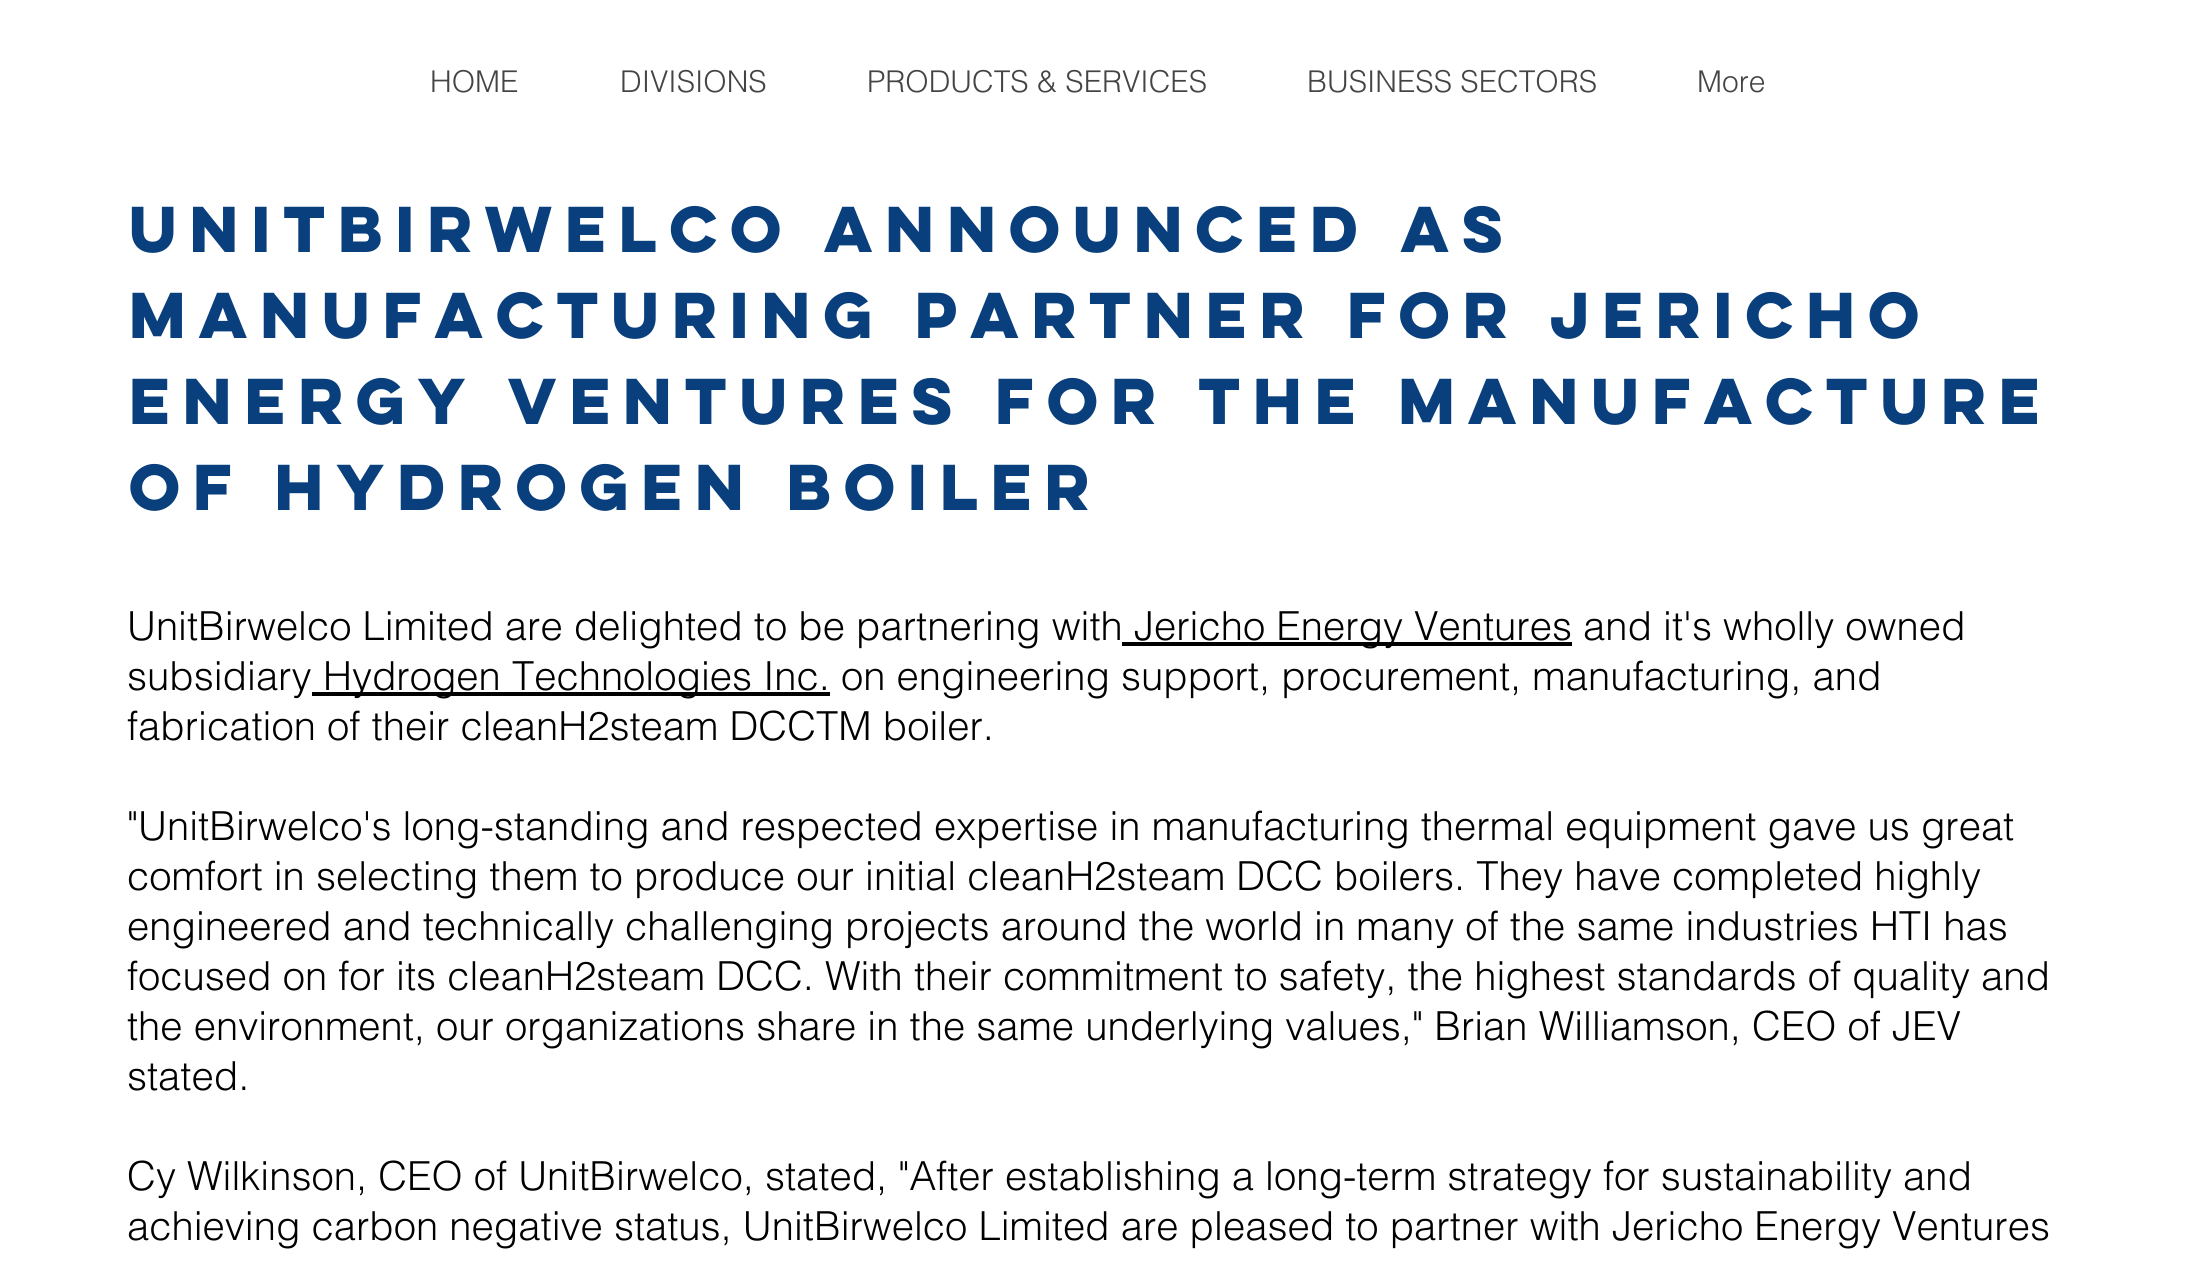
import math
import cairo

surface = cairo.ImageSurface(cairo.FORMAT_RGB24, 2193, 1269)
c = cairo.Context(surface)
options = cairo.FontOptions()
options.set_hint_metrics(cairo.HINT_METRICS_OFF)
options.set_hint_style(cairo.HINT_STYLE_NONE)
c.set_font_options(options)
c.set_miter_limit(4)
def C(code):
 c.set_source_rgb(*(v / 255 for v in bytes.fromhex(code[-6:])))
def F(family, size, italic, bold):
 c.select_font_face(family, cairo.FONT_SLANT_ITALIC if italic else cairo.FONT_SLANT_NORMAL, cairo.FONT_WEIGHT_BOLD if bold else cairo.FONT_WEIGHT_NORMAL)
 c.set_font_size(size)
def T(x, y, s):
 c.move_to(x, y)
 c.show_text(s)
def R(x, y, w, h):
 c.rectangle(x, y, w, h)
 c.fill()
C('ffffff')
c.paint()
F('helvetica Light',30,0,0)
C('444444')
T(430,92,'HOME')
T(620,92,'DIVISIONS')
T(867,92,'PRODUCTS & SERVICES')
T(1307,92,'BUSINESS SECTORS')
T(1697,92,'More')
F('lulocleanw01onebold',58,0,1)
C('093f7c')
T(129,252,'UnitBirwelco announced as')
T(129,338,'manufacturing partner for Jericho')
T(129,424,'Energy Ventures for the manufacture')
T(129,510,'of hydrogen boiler')
F('helvetica Light',40,0,0)
C('000000')
T(127,640,'UnitBirwelco Limited are delighted to be partnering with')
R(1122,642,450,4)
T(1134,640,'Jericho Energy Ventures and it\'s wholly owned')
T(127,690,'subsidiary')
R(312,692,518,4)
T(323,690,'Hydrogen Technologies Inc. on engineering support, procurement, manufacturing, and')
T(127,740,'fabrication of their cleanH2steam DCCTM boiler.')
T(127,840,'"UnitBirwelco\'s long-standing and respected expertise in manufacturing thermal equipment gave us great')
T(127,890,'comfort in selecting them to produce our initial cleanH2steam DCC boilers. They have completed highly')
T(127,940,'engineered and technically challenging projects around the world in many of the same industries HTI has')
T(127,990,'focused on for its cleanH2steam DCC. With their commitment to safety, the highest standards of quality and')
T(127,1040,'the environment, our organizations share in the same underlying values," Brian Williamson, CEO of JEV')
T(127,1090,'stated.')
T(127,1190,'Cy Wilkinson, CEO of UnitBirwelco, stated, "After establishing a long-term strategy for sustainability and')
T(127,1240,'achieving carbon negative status, UnitBirwelco Limited are pleased to partner with Jericho Energy Ventures')
surface.write_to_png('o.png')
